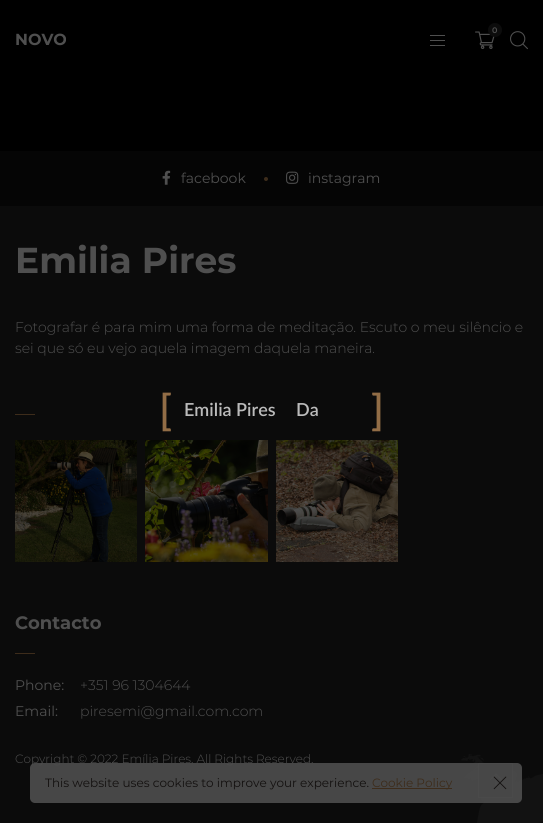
import math
import cairo

surface = cairo.ImageSurface(cairo.FORMAT_RGB24, 543, 823)
c = cairo.Context(surface)
options = cairo.FontOptions()
options.set_hint_metrics(cairo.HINT_METRICS_OFF)
options.set_hint_style(cairo.HINT_STYLE_NONE)
c.set_font_options(options)
c.set_miter_limit(4)
def C(code):
 c.set_source_rgb(*(v / 255 for v in bytes.fromhex(code[-6:])))
def F(family, size, italic, bold):
 c.select_font_face(family, cairo.FONT_SLANT_ITALIC if italic else cairo.FONT_SLANT_NORMAL, cairo.FONT_WEIGHT_BOLD if bold else cairo.FONT_WEIGHT_NORMAL)
 c.set_font_size(size)
def T(x, y, s):
 c.move_to(x, y)
 c.show_text(s)
def R(x, y, w, h):
 c.rectangle(x, y, w, h)
 c.fill()
def Q(x, y, w, h, r):
 c.new_sub_path()
 for i, (u, v) in enumerate([(x + w - r, y + h - r), (x + r, y + h - r), (x + r, y + r), (x + w - r, y + r)]):
  c.arc(u, v, r, i * math.pi / 2, (i + 1) * math.pi / 2)
 c.close_path()
def I(path, x, y, w, h):
 c.save()
 c.set_source_surface(cairo.ImageSurface.create_from_png(path), x, y)
 c.rectangle(x, y, w, h)
 c.fill()
 c.restore()
C('000000')
c.paint()
C('4f4f4f')
R(430,35,15,1)
R(430,40,15,1)
R(430,45,15,1)
I('1.png',475,31,20,18)
C('0c0c0c')
c.arc(495,30,7,0,2 * math.pi)
c.fill()
F('Montserrat SemiBold',8,0,0)
C('4f4f4f')
T(492,33,'0')
I('2.png',510,31,18,19)
F('Montserrat',16,0,1)
T(15,45,'NOVO')
C('050505')
R(0,151,543,55)
I('3.png',162,170,9,15)
F('Montserrat',14,0,0)
C('4f4f4f')
T(181,183,'facebook')
C('3d2c1b')
c.new_path()
c.arc(266,179,2,0,2 * math.pi)
c.fill()
I('4.png',286,171,13,13)
C('4f4f4f')
T(308,183,'instagram')
C('0b0b0b')
R(0,206,543,617)
I('5.png',461,754,82,69)
F('Montserrat',36,0,1)
C('4f4f4f')
T(15,273,'Emilia Pires')
F('Montserrat Light',14,0,0)
T(15,332,'Fotografar é para mim uma forma de meditação. Escuto o meu silêncio e')
T(15,353,'sei que só eu vejo aquela imagem daquela maneira.')
C('3d2c1b')
R(15,414,20,1)
I('6.png',15,440,122,122)
I('7.png',145,440,123,122)
I('8.png',276,440,122,122)
F('Montserrat',18,0,1)
C('4f4f4f')
T(15,629,'Contacto')
C('3d2c1b')
R(15,653,20,1)
F('Montserrat',14,0,0)
C('4f4f4f')
T(15,690,'Phone:')
F('Montserrat Light',14,0,0)
T(80,690,'+351 96 1304644')
F('Montserrat',14,0,0)
T(15,716,'Email:')
F('Montserrat Light',14,0,0)
T(80,716,'piresemi@gmail.com.com')
F('Montserrat Light',12,0,0)
T(15,763,'Copyright © 2022 Emília Pires. All Rights Reserved.')
c.set_source_rgba(0.02,0.02,0.02,0.5)
R(478,763,35,35)
c.rectangle(478.5,763.5,34,34)
c.set_source_rgba(0.31,0.31,0.31,0.5)
c.set_line_width(1)
c.stroke()
I('9.png',489,773,14,13)
F('Lato SemiBold',42,0,0)
C('926d46')
T(159,425,'[')
F('Lato SemiBold',18,0,0)
C('bbbbbb')
T(184,416,'Emilia Pires')
T(296,416,'Da')
F('Lato SemiBold',42,0,0)
C('926d46')
T(371,425,']')
c.set_source_rgba(0.306,0.306,0.306,0.9)
Q(30,763,492,40,5)
c.fill()
F('Montserrat',12,0,0)
C('13100f')
T(45,787,'This website uses cookies to improve your experience.')
C('3d2c1b')
R(372,788,80,1)
T(372,787,'Cookie Policy')
I('10.png',493,776,14,14)
surface.write_to_png('o.png')
